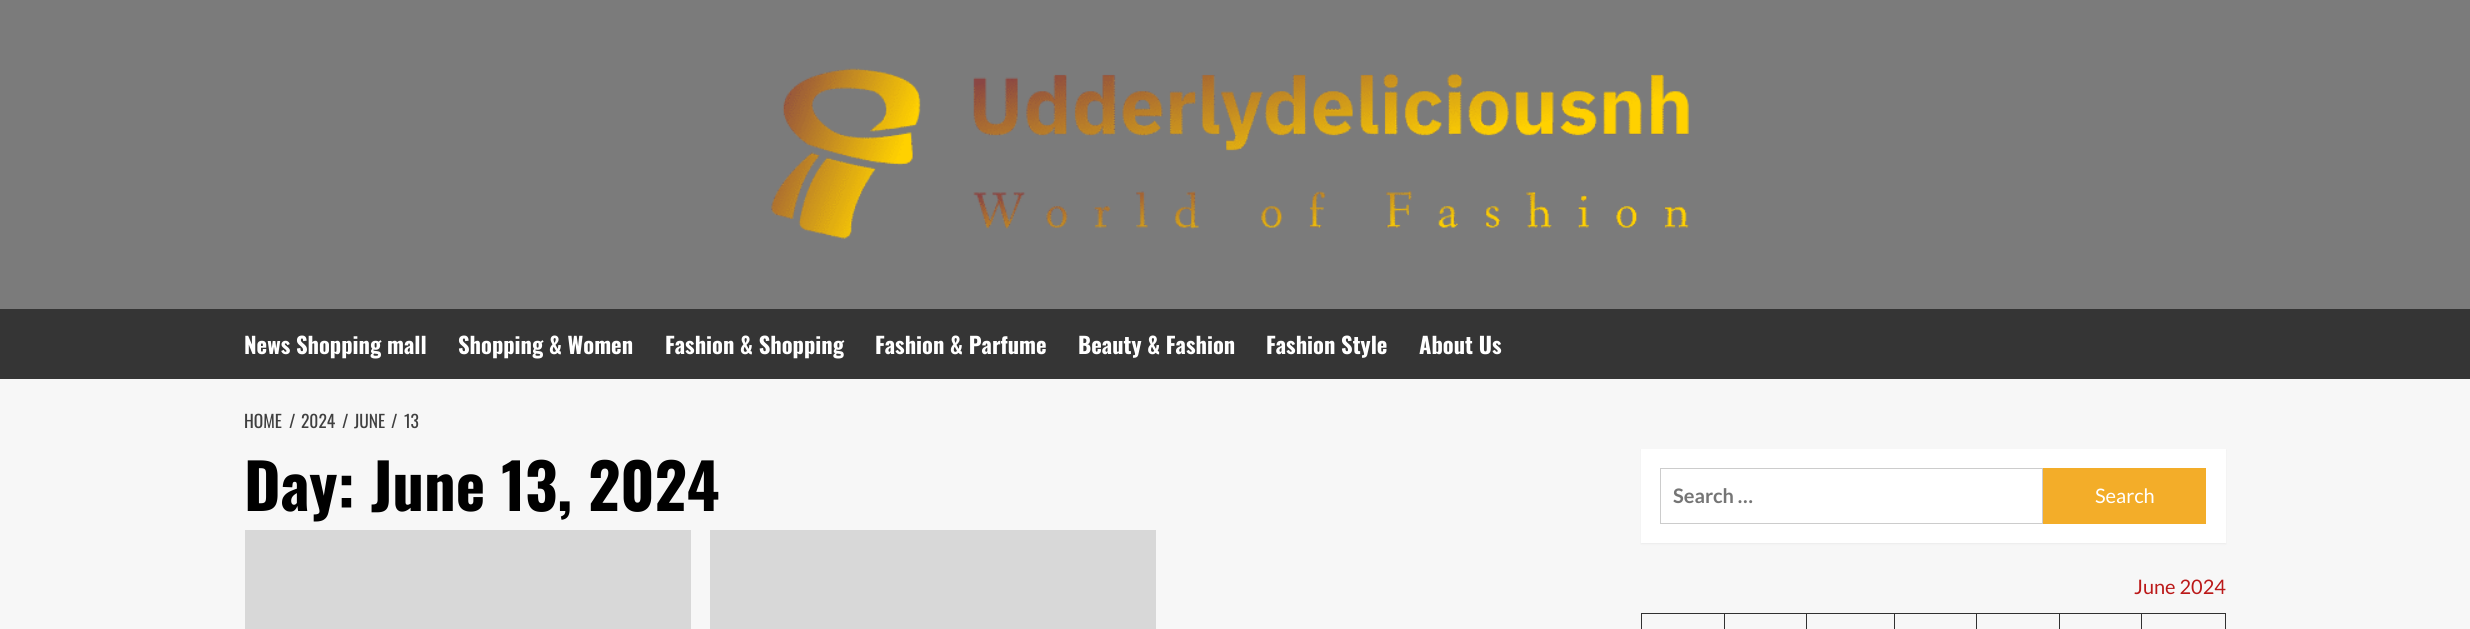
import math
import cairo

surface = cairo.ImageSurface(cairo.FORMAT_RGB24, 2470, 629)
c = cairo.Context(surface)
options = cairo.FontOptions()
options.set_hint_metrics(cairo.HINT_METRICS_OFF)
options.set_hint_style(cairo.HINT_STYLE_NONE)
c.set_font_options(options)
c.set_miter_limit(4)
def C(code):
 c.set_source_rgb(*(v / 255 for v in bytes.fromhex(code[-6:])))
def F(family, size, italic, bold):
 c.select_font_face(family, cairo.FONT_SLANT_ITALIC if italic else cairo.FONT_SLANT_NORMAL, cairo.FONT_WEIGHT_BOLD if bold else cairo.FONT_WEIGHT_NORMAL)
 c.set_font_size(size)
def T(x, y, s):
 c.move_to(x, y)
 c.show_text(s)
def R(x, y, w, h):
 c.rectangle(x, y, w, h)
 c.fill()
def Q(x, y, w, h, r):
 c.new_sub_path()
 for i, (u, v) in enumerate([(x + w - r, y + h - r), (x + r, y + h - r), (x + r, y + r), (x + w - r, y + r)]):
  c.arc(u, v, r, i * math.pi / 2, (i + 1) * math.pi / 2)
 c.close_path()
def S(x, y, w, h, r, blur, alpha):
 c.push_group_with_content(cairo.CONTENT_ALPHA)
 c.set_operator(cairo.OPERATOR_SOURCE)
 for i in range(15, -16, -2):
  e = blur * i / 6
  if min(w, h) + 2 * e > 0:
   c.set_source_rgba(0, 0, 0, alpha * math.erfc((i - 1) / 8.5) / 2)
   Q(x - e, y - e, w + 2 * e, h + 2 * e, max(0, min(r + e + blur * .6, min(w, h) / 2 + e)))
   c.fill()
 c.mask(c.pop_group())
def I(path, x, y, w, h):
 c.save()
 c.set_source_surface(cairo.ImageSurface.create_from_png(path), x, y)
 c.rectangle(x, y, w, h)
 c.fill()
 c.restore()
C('f7f7f7')
c.paint()
C('7b7b7b')
R(0,0,2470,309)
I('1.png',771,68,918,171)
C('353535')
R(0,309,2470,70)
F('Oswald',22.5,0,1)
C('ffffff')
T(244,354,'News Shopping mall')
T(458,354,'Shopping & Women')
T(665,354,'Fashion & Shopping')
T(875,354,'Fashion & Parfume')
T(1078,354,'Beauty & Fashion')
T(1266,354,'Fashion Style')
T(1419,354,'About Us')
F('Oswald',17.5,0,0)
C('404040')
T(244,428,'HOME')
T(289,428,'/')
T(301,428,'2024')
T(342,428,'/')
T(354,428,'JUNE')
T(391,428,'/')
T(404,428,'13')
F('Oswald',62.5,0,1)
C('000000')
T(244,511,'Day: June 13, 2024')
C('d8d8d8')
R(245,530,446,99)
R(710,530,446,99)
C('000000')
S(1641,450,585,94,0,1,.05)
C('ffffff')
R(1641,449,585,94)
c.rectangle(1660.5,468.5,382,55)
C('cccccc')
c.set_line_width(1)
c.stroke()
F('Lato',20,0,1)
C('757575')
T(1673,503,'Search …')
C('f3ad29')
R(2043,468,163,56)
F('Lato',20,0,0)
C('ffffff')
T(2095,503,'Search')
C('bb1919')
T(2134,594,'June 2024')
C('313131')
R(2141,613,85,1)
R(2141,613,1,16)
R(2059,613,84,1)
R(2059,613,1,16)
R(1976,613,84,1)
R(1976,613,1,16)
R(1894,613,84,1)
R(1894,613,1,16)
R(1806,613,89,1)
R(1806,613,1,16)
R(1724,613,84,1)
R(1724,613,1,16)
R(1641,613,84,1)
R(1641,613,1,16)
R(2225,613,1,16)
surface.write_to_png('o.png')
